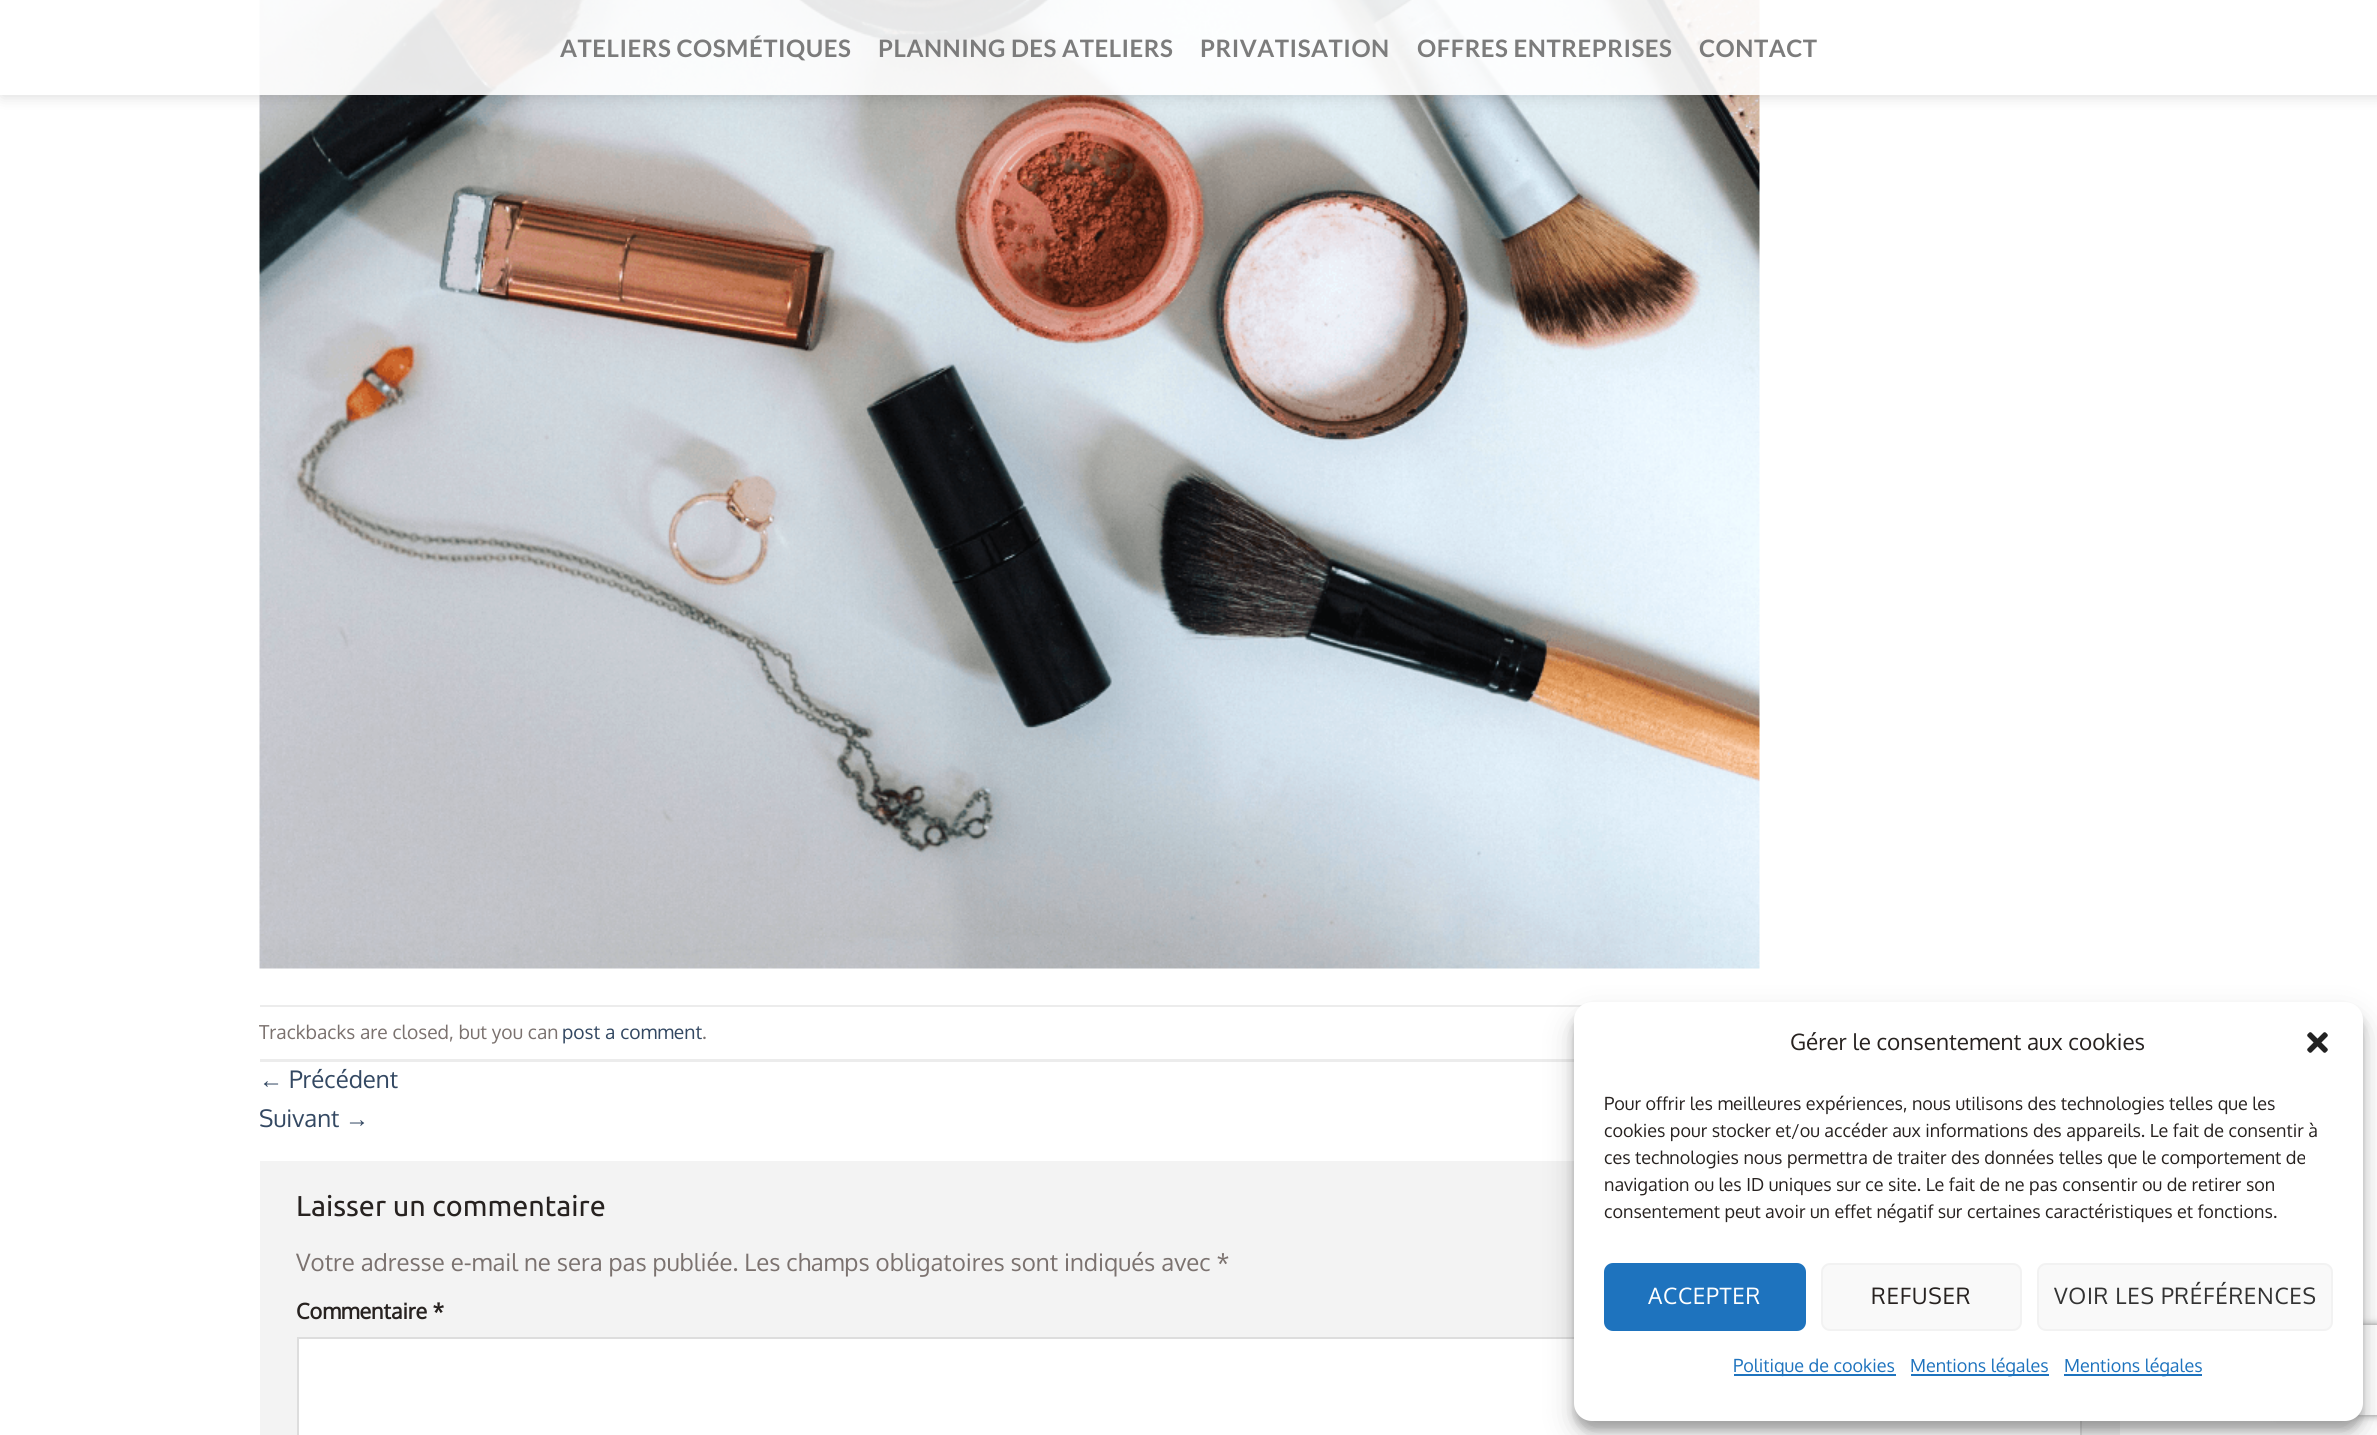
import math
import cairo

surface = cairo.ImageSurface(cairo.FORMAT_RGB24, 2377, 1435)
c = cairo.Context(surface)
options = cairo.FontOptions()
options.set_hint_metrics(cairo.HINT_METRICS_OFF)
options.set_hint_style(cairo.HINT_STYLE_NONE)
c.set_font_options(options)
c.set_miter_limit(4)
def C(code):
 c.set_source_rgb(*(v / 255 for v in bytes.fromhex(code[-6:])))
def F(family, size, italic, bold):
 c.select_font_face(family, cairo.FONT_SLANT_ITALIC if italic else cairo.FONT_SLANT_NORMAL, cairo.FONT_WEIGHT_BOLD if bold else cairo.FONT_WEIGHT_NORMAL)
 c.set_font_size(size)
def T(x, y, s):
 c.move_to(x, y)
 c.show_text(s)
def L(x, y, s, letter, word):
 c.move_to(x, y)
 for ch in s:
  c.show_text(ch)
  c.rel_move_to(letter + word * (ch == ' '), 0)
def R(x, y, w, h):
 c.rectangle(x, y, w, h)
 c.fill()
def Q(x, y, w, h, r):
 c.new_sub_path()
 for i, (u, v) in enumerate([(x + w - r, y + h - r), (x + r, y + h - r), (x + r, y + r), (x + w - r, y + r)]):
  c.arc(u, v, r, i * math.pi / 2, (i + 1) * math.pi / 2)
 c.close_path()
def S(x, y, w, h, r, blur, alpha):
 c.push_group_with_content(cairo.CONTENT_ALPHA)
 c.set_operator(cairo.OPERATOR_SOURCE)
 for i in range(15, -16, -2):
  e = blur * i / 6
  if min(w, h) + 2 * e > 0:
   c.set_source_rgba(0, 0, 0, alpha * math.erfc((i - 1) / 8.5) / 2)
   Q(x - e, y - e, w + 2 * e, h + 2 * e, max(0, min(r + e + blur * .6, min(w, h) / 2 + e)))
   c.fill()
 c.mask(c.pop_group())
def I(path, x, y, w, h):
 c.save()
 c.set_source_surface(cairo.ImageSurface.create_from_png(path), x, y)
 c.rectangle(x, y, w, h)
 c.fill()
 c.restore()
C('ffffff')
c.paint()
I('1.png',259,0,1501,969)
c.save()
c.set_fill_rule(cairo.FILL_RULE_EVEN_ODD)
c.new_path()
c.move_to(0,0)
c.line_to(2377,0)
c.line_to(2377,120)
c.line_to(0,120)
c.close_path()
c.move_to(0,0)
c.line_to(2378,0)
c.line_to(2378,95)
c.line_to(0,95)
c.close_path()
c.clip()
C('000000')
S(2,2,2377,94,0,7.5,.15)
c.restore()
c.set_source_rgba(1,1,1,0.9)
R(0,0,2377,95)
F('Lato',24,0,1)
C('7c7c7c')
L(560,57,'ATELIERS COSMÉTIQUES',.5,0)
L(878,57,'PLANNING DES ATELIERS',.5,0)
L(1200,57,'PRIVATISATION',.5,0)
L(1417,57,'OFFRES ENTREPRISES',.5,0)
L(1699,57,'CONTACT',.5,0)
C('ececec')
R(260,1005,1322,2)
R(260,1059,1314,3)
F('Oxygen',19.25,0,0)
C('7b726f')
T(259,1039,'Trackbacks are closed, but you can')
C('334862')
T(562,1039,'post a comment')
C('7b726f')
T(702,1039,'.')
F('Liberation Sans',24,0,0)
C('334862')
T(259,1088,'←')
F('Oxygen',24,0,0)
T(289,1088,'Précédent')
T(259,1127,'Suivant')
F('Liberation Sans',24,0,0)
T(345,1127,'→')
C('f3f3f3')
R(260,1161,1860,274)
F('Ubuntu',28.75,0,0)
C('272220')
T(296,1216,'Laisser un commentaire')
F('Oxygen',24,0,0)
C('7b726f')
T(296,1271,'Votre adresse e-mail ne sera pas publiée. Les champs obligatoires sont indiqués avec *')
F('Oxygen',21.5,0,1)
C('272220')
T(296,1319,'Commentaire *')
C('ffffff')
c.rectangle(298,1338,1783,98)
c.fill_preserve()
C('dddddd')
c.stroke()
C('000000')
S(1574,1011,789,419,18,4.5,.23)
S(1574,1017,789,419,18,15,.19)
c.save()
c.set_fill_rule(cairo.FILL_RULE_EVEN_ODD)
c.new_path()
c.move_to(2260,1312)
c.line_to(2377,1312)
c.line_to(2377,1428)
c.line_to(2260,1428)
c.close_path()
c.move_to(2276,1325)
c.line_to(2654,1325)
c.curve_to(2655.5,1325,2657,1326.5,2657,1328)
c.line_to(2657,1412)
c.curve_to(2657,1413.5,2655.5,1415,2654,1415)
c.line_to(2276,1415)
c.curve_to(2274.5,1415,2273,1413.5,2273,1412)
c.line_to(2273,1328)
c.curve_to(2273,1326.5,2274.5,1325,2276,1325)
c.close_path()
c.clip()
C('808080')
S(2273,1325,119,90,3,4,1)
c.restore()
C('ffffff')
Q(1574,1002,789,419,18)
c.fill()
F('Oxygen',22.5,0,0)
C('272220')
T(1790,1050,'Gérer le consentement aux cookies')
I('2.png',2307,1032,21,21)
F('Oxygen',18,0,0)
T(1604,1110,'Pour offrir les meilleures expériences, nous utilisons des technologies telles que les')
T(1604,1137,'cookies pour stocker et/ou accéder aux informations des appareils. Le fait de consentir à')
T(1604,1164,'ces technologies nous permettra de traiter des données telles que le comportement de')
T(1604,1191,'navigation ou les ID uniques sur ce site. Le fait de ne pas consentir ou de retirer son')
T(1604,1218,'consentement peut avoir un effet négatif sur certaines caractéristiques et fonctions.')
C('1e73be')
Q(1605,1264,200,66,8)
c.fill_preserve()
c.stroke()
F('Oxygen',22.5,0,0)
C('ffffff')
L(1648,1304,'ACCEPTER',.7,0)
C('f9f9f9')
Q(1822,1264,199,66,8)
c.fill_preserve()
C('f2f2f2')
c.stroke()
C('272220')
L(1871,1304,'REFUSER',.7,0)
C('f9f9f9')
Q(2038,1264,294,66,8)
c.fill_preserve()
C('f2f2f2')
c.stroke()
C('333333')
L(2054,1304,'VOIR LES PRÉFÉRENCES',.7,0)
C('1e73be')
R(1734,1374,162,2)
F('Oxygen',18,0,0)
T(1733,1372,'Politique de cookies')
R(1911,1374,138,2)
T(1910,1372,'Mentions légales')
R(2064,1374,138,2)
T(2064,1372,'Mentions légales')
surface.write_to_png('o.png')
